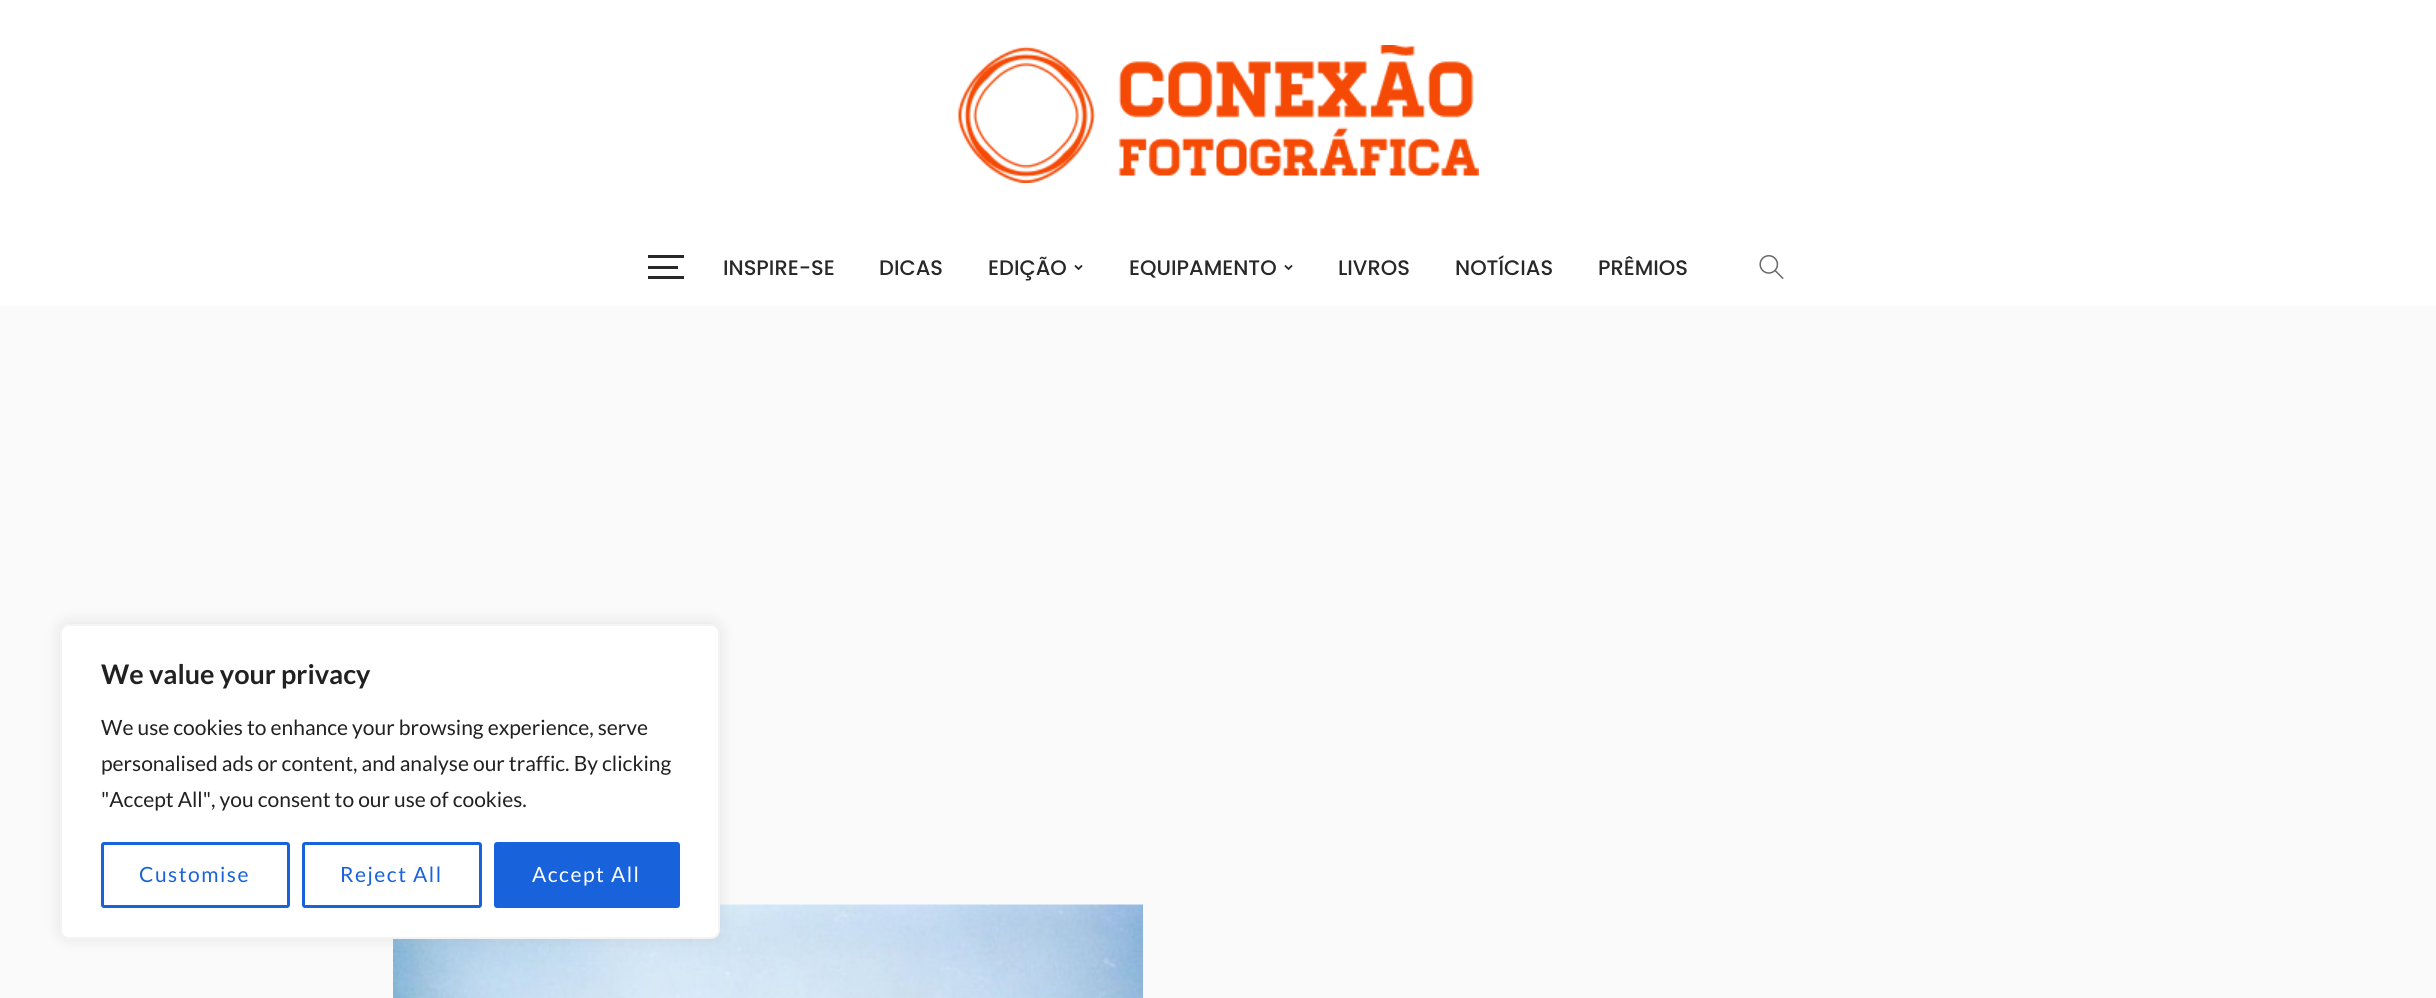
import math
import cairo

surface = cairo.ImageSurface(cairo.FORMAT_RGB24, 2436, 998)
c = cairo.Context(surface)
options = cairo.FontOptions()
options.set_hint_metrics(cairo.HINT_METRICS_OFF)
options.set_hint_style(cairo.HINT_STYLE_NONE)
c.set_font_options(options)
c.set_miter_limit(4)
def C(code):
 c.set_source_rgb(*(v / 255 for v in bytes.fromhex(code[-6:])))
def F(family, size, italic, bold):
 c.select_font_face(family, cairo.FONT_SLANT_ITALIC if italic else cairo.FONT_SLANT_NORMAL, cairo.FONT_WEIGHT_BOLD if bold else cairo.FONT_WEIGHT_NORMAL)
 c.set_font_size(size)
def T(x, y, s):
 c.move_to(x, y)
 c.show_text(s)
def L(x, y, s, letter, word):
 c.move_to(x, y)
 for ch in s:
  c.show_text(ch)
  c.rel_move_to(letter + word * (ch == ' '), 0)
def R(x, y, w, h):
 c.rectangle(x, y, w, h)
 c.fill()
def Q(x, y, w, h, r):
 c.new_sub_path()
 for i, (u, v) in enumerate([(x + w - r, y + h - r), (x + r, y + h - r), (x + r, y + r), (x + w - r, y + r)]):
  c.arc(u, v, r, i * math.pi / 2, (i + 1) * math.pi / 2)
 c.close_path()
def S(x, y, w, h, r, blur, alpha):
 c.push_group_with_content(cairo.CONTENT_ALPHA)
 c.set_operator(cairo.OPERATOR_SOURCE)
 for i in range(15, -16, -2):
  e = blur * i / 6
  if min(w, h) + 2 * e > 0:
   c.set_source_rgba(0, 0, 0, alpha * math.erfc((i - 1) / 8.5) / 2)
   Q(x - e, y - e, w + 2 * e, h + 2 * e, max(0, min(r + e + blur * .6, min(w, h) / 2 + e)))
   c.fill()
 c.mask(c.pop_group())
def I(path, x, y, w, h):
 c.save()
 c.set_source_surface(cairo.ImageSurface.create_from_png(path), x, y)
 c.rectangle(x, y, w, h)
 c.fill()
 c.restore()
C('fafafa')
c.paint()
C('ffffff')
R(0,0,2436,306)
I('1.png',958,45,521,138)
C('282828')
R(648,266,30,3)
R(648,255,36,3)
R(648,276,36,3)
F('Poppins Medium',21,0,0)
T(723,275,'INSPIRE-SE')
T(879,275,'DICAS')
T(988,275,'EDIÇÃO')
I('2.png',1074,265,9,6)
T(1129,275,'EQUIPAMENTO')
I('2.png',1284,265,9,6)
T(1338,275,'LIVROS')
T(1455,275,'NOTÍCIAS')
T(1598,275,'PRÊMIOS')
I('3.png',1759,255,25,24)
I('4.png',393,904,750,94)
C('acabab')
S(60,623,660,315,9,7.5,.3)
C('ffffff')
Q(61,625,658,313,8)
c.fill_preserve()
C('f4f4f4')
c.stroke()
F('Lato',27,0,1)
C('212121')
T(101,684,'We value your privacy')
F('Lato',21,0,0)
T(101,735,'We use cookies to enhance your browsing experience, serve')
T(101,771,'personalised ads or content, and analyse our traffic. By clicking')
T(101,807,'"Accept All", you consent to our use of cookies.')
Q(102.5,843.5,186,63,1.5)
C('1863dc')
c.set_line_width(3)
c.stroke()
L(139,882,'Customise',1.5,0)
Q(303.5,843.5,177,63,1.5)
c.stroke()
L(340,882,'Reject All',1.5,0)
Q(495.5,843.5,183,63,1.5)
c.fill_preserve()
c.stroke()
C('ffffff')
L(532,882,'Accept All',1.5,0)
surface.write_to_png('o.png')
